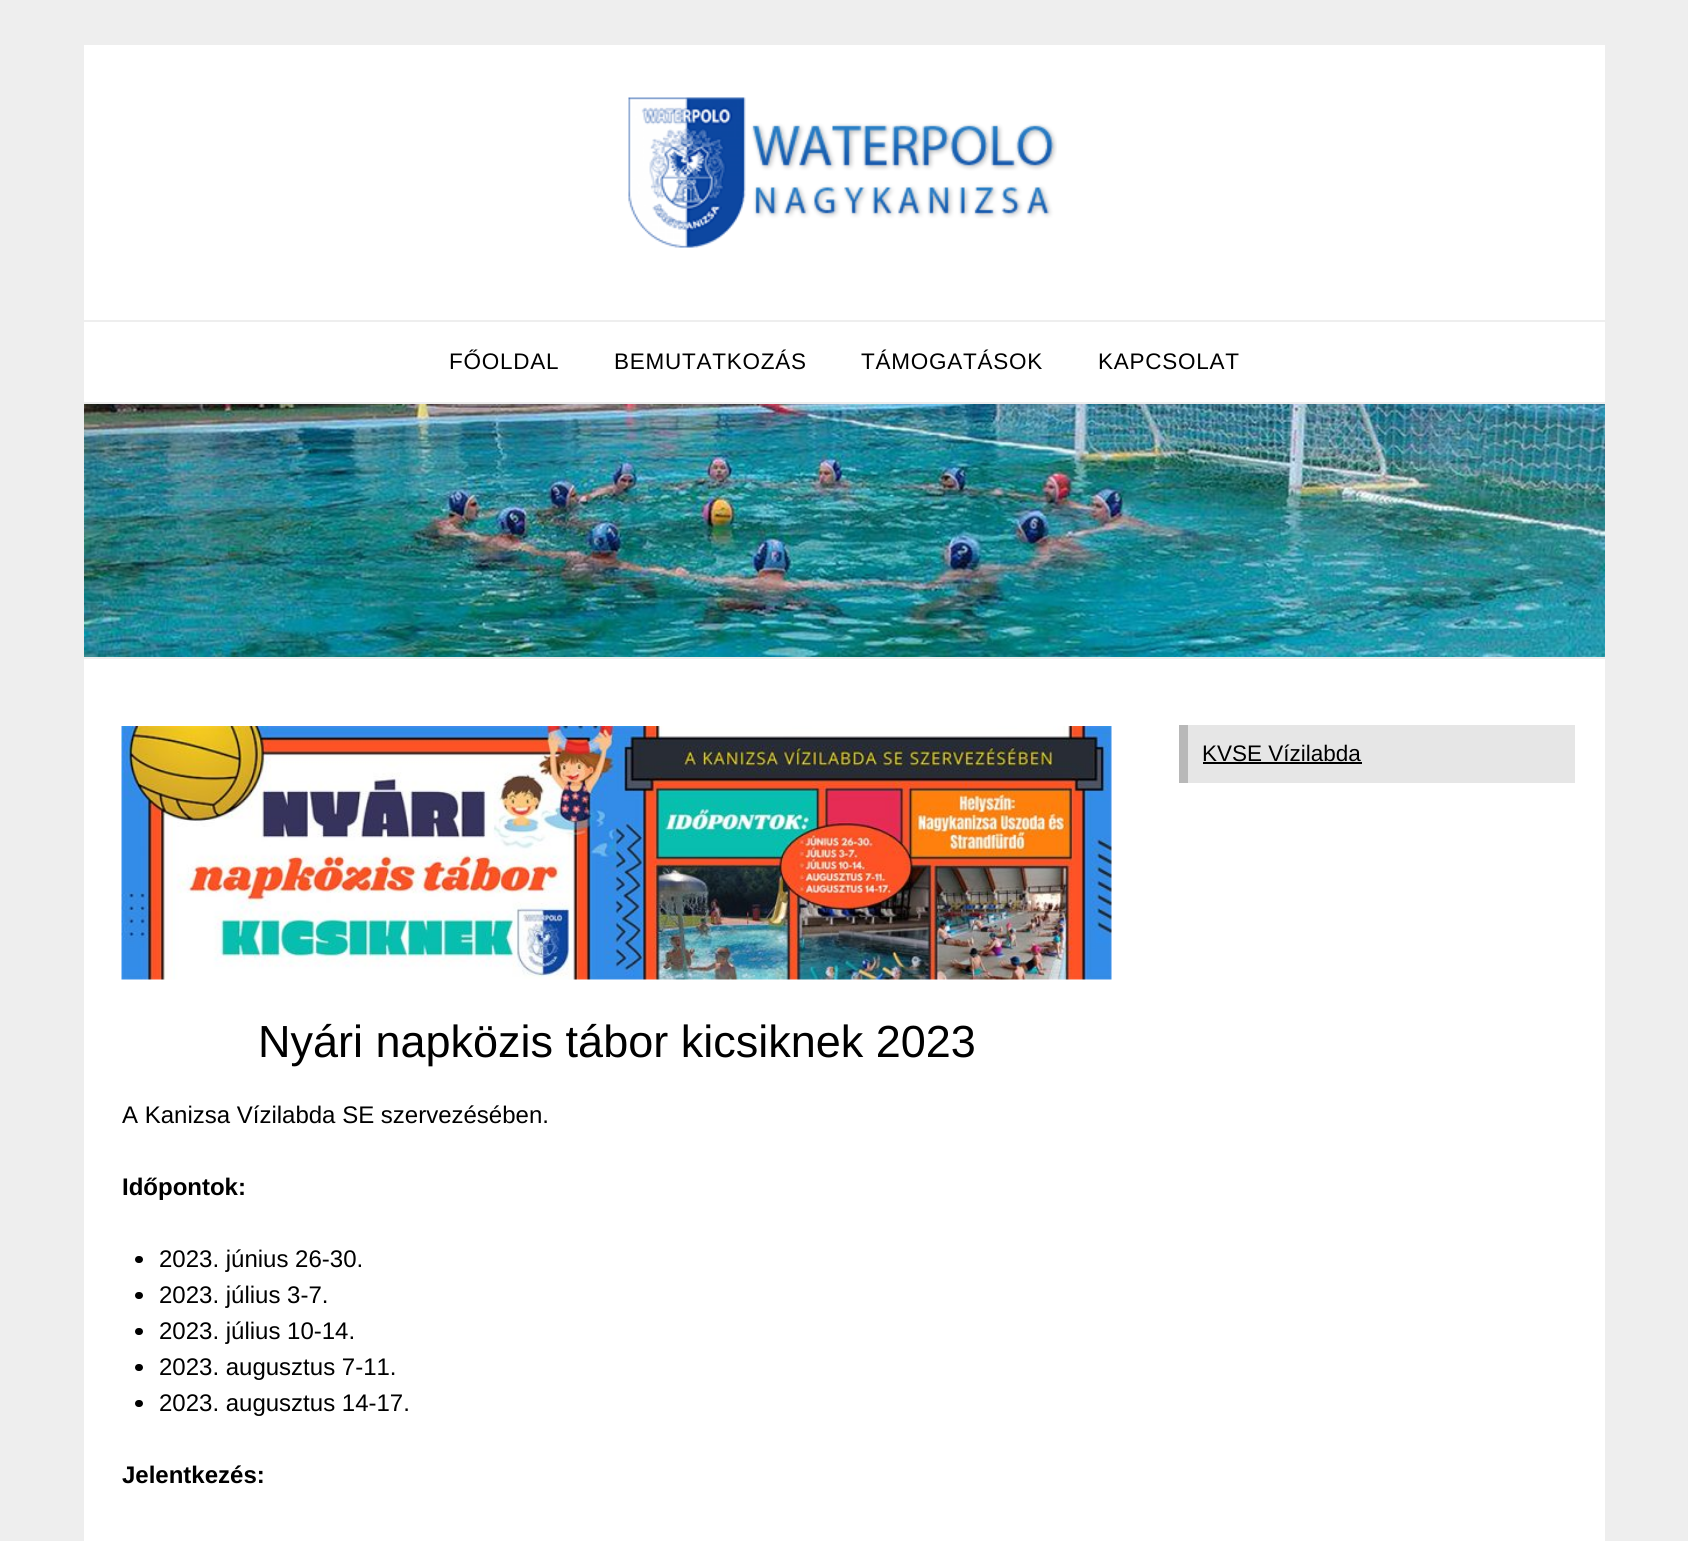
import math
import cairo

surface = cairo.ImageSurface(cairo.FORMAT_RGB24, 1688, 1541)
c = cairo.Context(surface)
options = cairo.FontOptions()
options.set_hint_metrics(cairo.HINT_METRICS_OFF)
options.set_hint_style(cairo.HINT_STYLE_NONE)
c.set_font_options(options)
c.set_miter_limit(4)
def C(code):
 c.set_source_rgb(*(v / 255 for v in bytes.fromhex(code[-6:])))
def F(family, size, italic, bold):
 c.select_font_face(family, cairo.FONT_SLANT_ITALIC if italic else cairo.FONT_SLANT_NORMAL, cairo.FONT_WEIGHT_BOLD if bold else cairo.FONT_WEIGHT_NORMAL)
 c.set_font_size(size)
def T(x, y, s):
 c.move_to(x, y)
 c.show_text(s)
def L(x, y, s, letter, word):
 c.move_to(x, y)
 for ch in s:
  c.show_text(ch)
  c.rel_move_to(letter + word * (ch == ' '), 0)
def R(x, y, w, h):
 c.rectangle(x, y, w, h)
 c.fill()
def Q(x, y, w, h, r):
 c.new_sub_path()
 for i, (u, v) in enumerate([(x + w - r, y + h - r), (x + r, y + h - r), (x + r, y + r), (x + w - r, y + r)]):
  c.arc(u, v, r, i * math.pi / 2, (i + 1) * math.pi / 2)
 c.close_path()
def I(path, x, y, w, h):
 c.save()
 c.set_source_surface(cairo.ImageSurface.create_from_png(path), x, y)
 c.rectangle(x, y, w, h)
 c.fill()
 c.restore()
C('eeeeee')
c.paint()
C('ffffff')
R(84,45,1521,275)
I('1.png',628,97,429,151)
R(84,322,1521,80)
F('Liberation Sans',22.5,0,0)
C('000000')
L(449,369,'FŐOLDAL',.75,0)
L(614,369,'BEMUTATKOZÁS',.75,0)
L(861,369,'TÁMOGATÁSOK',.75,0)
L(1098,369,'KAPCSOLAT',.75,0)
I('2.png',84,404,1521,253)
C('ffffff')
R(84,659,1521,882)
C('e6e6e6')
R(1188,725,387,58)
C('b8b8b8')
R(1179,725,9,58)
C('000000')
T(1202,761,'KVSE Vízilabda')
R(1203,762,159,2)
I('3.png',121,726,991,254)
F('Liberation Sans',45,0,0)
T(258,1057,'Nyári napközis tábor kicsiknek 2023')
F('Liberation Sans',24,0,0)
T(122,1123,'A Kanizsa Vízilabda SE szervezésében.')
F('Liberation Sans',24,0,1)
T(122,1195,'Időpontok:')
Q(135,1256,8,7,3.5)
c.fill()
F('Liberation Sans',24,0,0)
T(159,1267,'2023. június 26-30.')
Q(135,1292,8,7,3.5)
c.fill()
T(159,1303,'2023. július 3-7.')
Q(135,1328,8,7,3.5)
c.fill()
T(159,1339,'2023. július 10-14.')
Q(135,1364,8,7,3.5)
c.fill()
T(159,1375,'2023. augusztus 7-11.')
Q(135,1400,8,7,3.5)
c.fill()
T(159,1411,'2023. augusztus 14-17.')
F('Liberation Sans',24,0,1)
T(122,1483,'Jelentkezés:')
surface.write_to_png('o.png')
